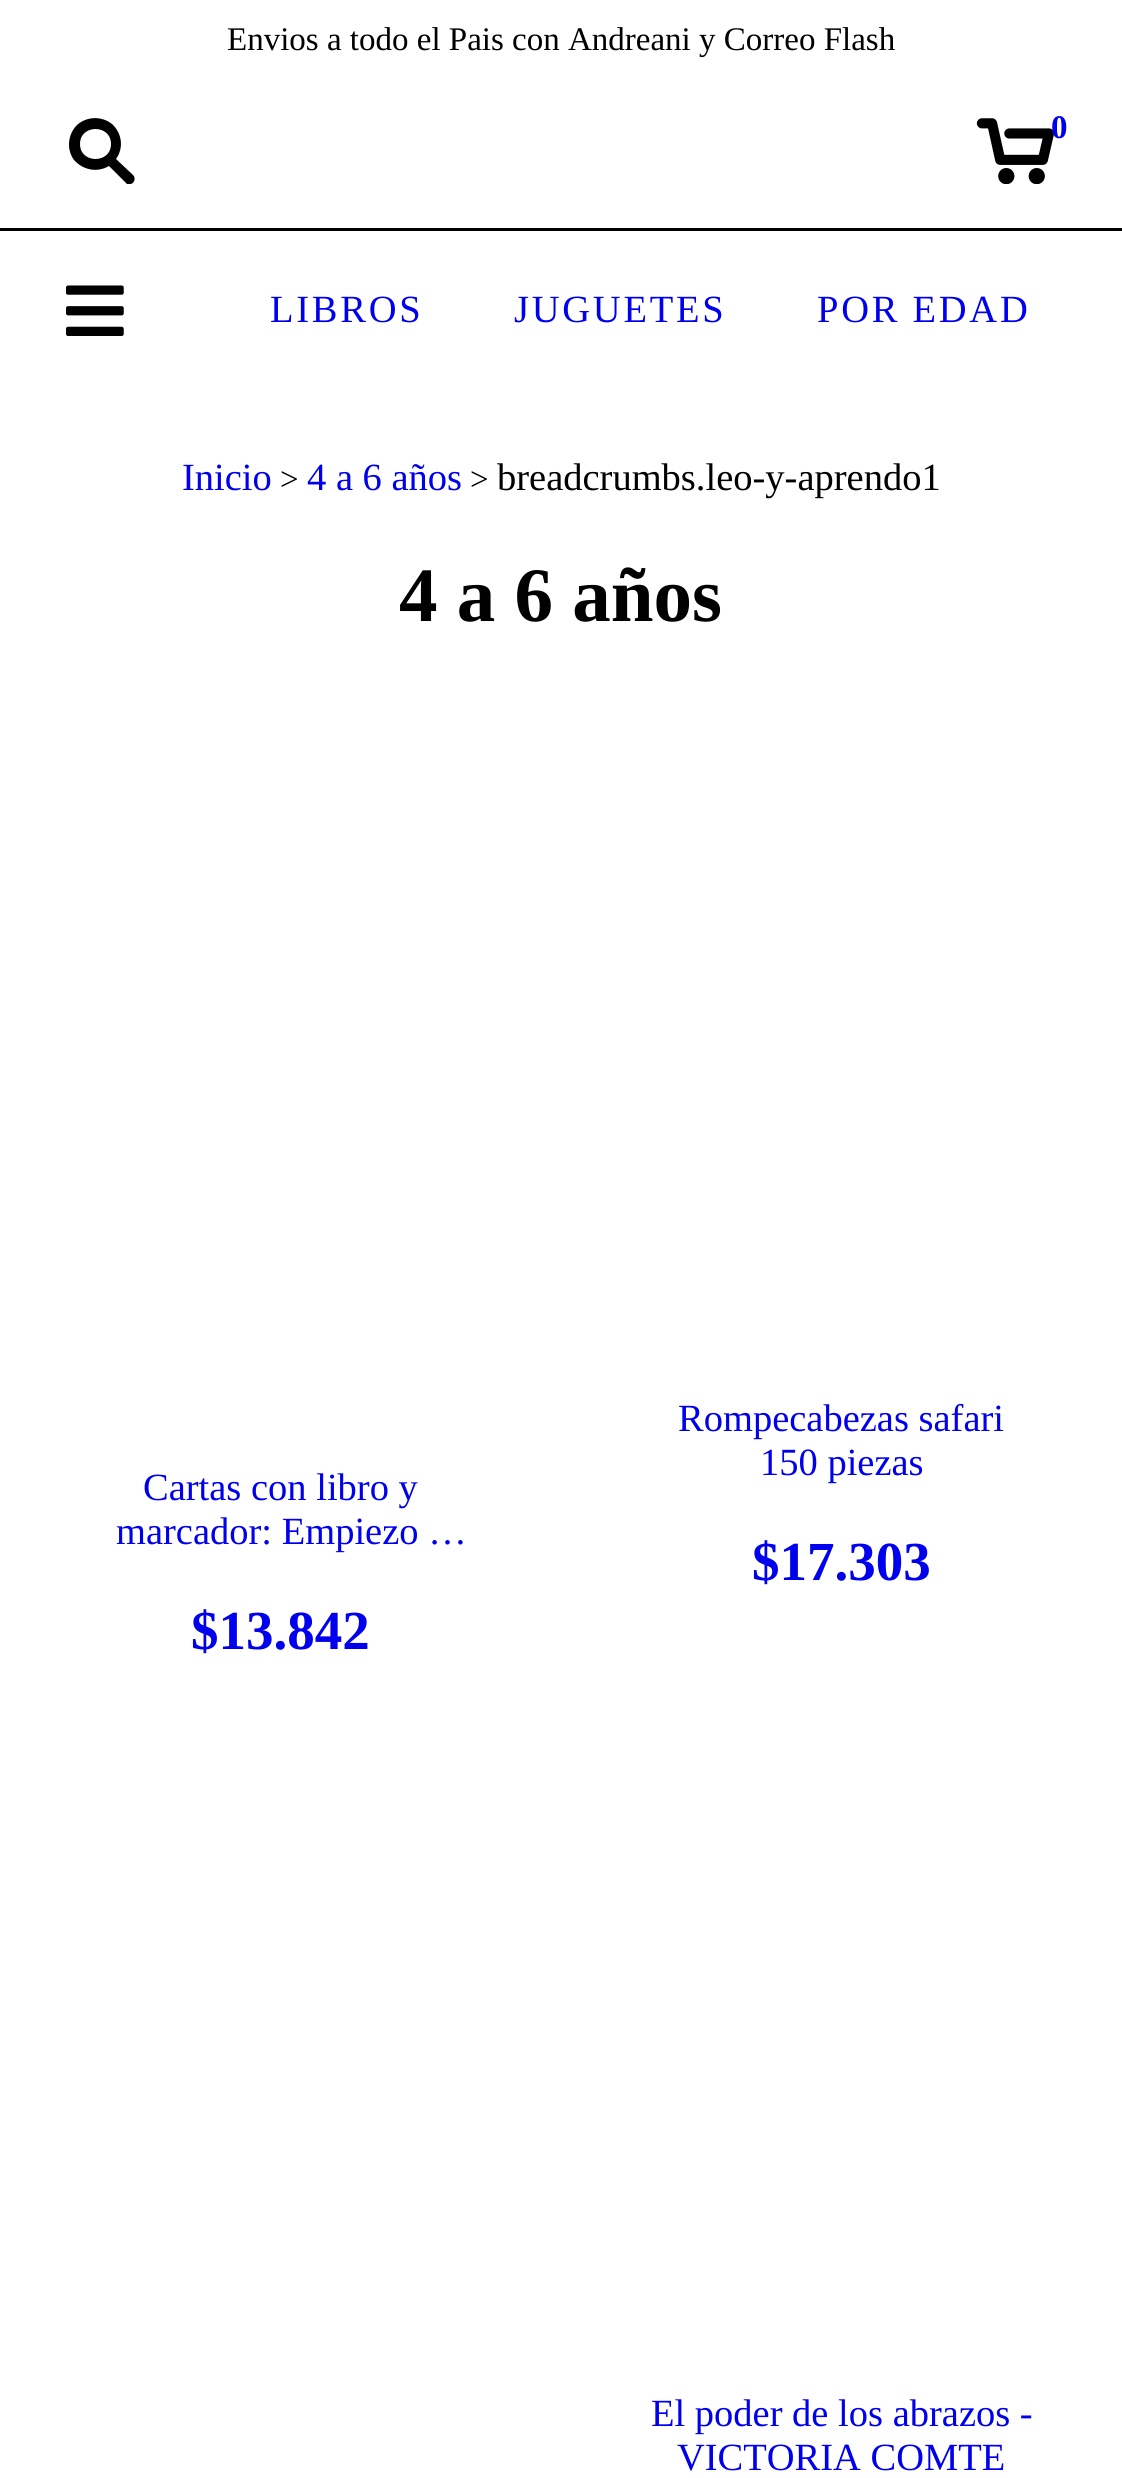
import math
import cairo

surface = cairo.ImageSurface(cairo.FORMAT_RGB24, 1122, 2478)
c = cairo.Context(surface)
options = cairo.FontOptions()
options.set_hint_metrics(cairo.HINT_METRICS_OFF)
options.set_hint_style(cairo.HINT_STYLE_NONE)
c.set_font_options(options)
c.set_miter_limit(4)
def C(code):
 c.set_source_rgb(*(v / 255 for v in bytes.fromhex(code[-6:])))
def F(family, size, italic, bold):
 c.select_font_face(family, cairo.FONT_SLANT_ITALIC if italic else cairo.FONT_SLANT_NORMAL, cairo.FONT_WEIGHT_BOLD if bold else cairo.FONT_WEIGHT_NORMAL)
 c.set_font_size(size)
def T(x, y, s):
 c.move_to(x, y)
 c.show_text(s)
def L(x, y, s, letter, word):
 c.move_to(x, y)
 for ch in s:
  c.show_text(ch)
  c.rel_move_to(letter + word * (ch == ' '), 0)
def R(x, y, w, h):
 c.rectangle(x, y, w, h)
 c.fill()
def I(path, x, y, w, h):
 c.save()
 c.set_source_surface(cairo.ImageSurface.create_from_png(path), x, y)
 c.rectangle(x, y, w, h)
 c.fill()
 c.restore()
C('ffffff')
c.paint()
F('Liberation Serif',33,0,0)
C('000000')
T(227,50,'Envios a todo el Pais con Andreani y Correo Flash')
c.save()
c.rectangle(69,118,66,66)
c.clip()
c.new_path()
c.move_to(133,175)
c.line_to(116,159)
c.curve_to(124,148,122,133,112,124)
c.curve_to(102,116,87,116,77,125)
c.curve_to(68,134,66,149,74,160)
c.curve_to(83,170,97,173,109,166)
c.line_to(127,184)
c.curve_to(133,186,137,179,133,175)
c.close_path()
c.move_to(80,144)
c.curve_to(80,124,111,124,111,144)
c.curve_to(111,164,80,164,80,144)
c.close_path()
c.fill()
c.restore()
I('1.png',976,118,78,66)
F('Liberation Serif',33,0,1)
C('0000ee')
T(1051,138,'0')
C('000000')
R(0,228,1122,3)
I('2.png',66,285,58,51)
F('Liberation Serif',38.5,0,0)
C('0000ee')
L(270,322,'LIBROS',2.75,0)
L(514,322,'JUGUETES',2.75,0)
L(817,322,'POR EDAD',2.75,0)
T(182,490,'Inicio')
F('Liberation Serif',33,0,0)
C('000000')
T(280,490,'>')
F('Liberation Serif',38.5,0,0)
C('0000ee')
T(307,490,'4 a 6 años')
F('Liberation Serif',33,0,0)
C('000000')
T(470,490,'>')
F('Liberation Serif',38.5,0,0)
T(497,490,'breadcrumbs.leo-y-aprendo1')
F('Liberation Serif',77,0,1)
T(399,621,'4 a 6 años')
F('Liberation Serif',38.5,0,0)
C('0000ee')
T(143,1500,'Cartas con libro y')
T(116,1544,'marcador: Empiezo …')
F('Liberation Serif',55,0,1)
T(191,1649,'$13.842')
F('Liberation Serif',38.5,0,0)
T(678,1431,'Rompecabezas safari')
T(760,1475,'150 piezas')
F('Liberation Serif',55,0,1)
T(752,1580,'$17.303')
F('Liberation Serif',38.5,0,0)
T(651,2426,'El poder de los abrazos -')
T(677,2470,'VICTORIA COMTE')
surface.write_to_png('o.png')
